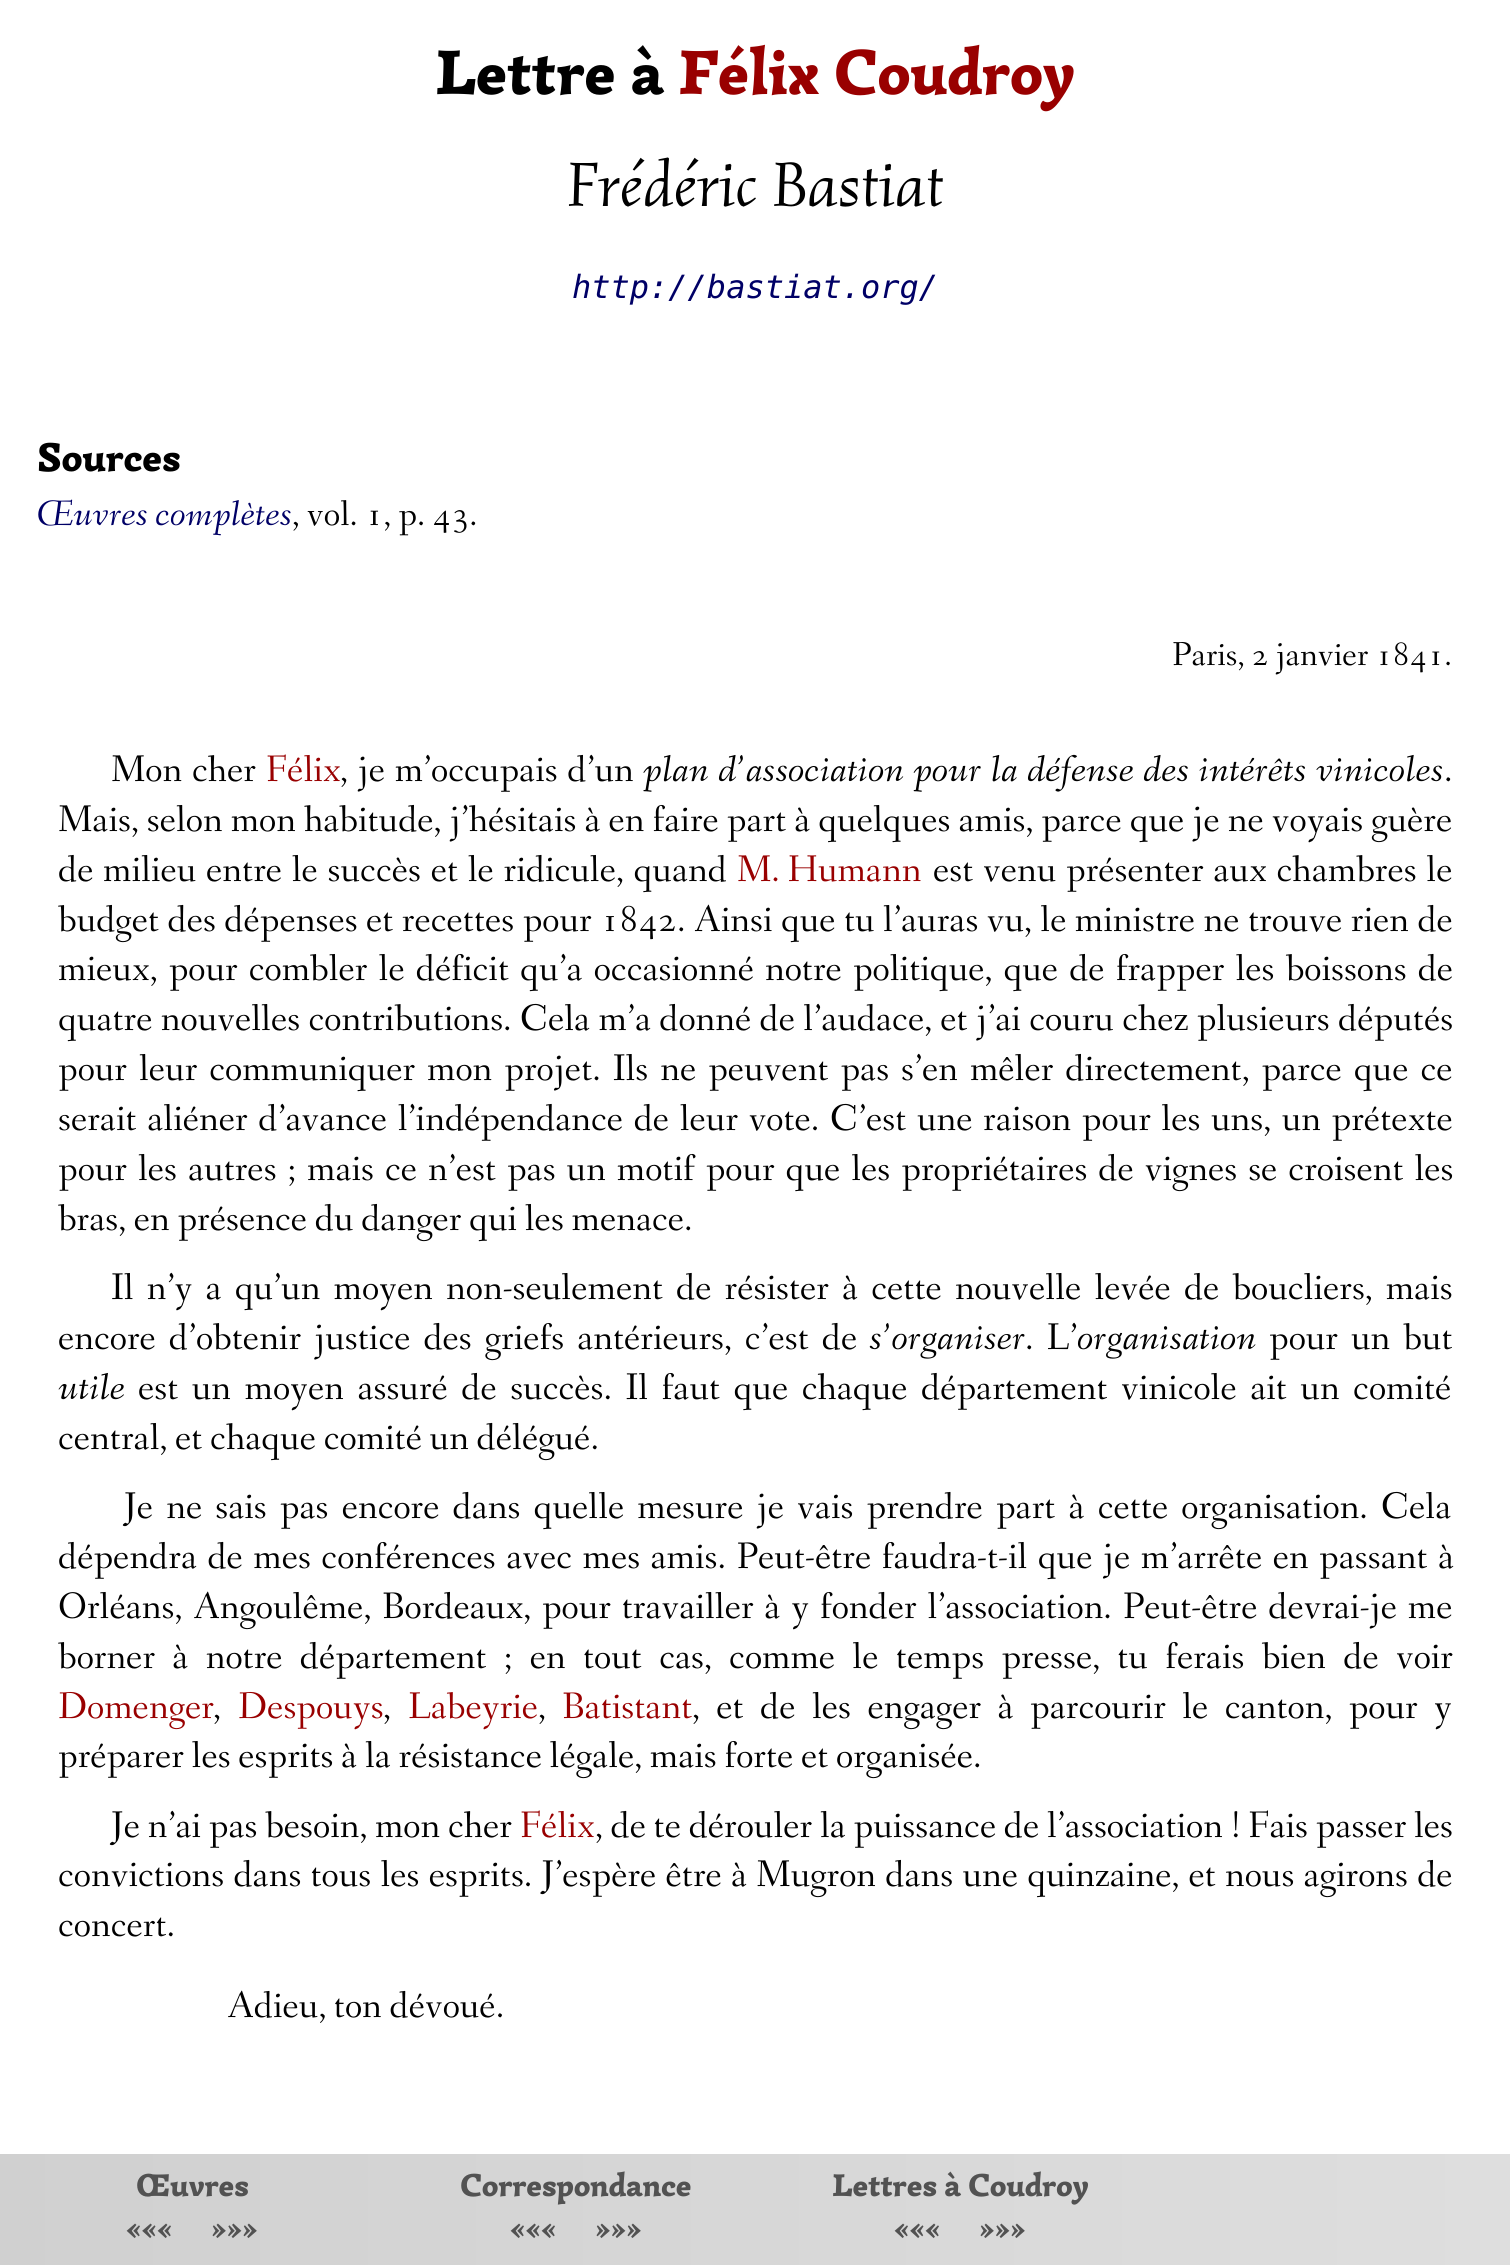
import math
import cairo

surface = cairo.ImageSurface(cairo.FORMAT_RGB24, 1510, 2265)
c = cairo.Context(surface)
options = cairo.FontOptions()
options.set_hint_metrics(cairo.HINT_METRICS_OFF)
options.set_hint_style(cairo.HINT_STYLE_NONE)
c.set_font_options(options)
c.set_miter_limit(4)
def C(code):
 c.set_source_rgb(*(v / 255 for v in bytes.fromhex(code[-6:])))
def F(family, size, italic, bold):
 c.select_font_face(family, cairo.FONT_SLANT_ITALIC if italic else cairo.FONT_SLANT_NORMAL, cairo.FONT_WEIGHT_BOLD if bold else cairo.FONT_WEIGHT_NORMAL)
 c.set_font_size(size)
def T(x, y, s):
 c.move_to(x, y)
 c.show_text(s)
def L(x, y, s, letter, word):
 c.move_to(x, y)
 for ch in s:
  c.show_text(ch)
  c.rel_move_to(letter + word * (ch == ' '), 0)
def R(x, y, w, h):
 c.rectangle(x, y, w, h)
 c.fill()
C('ffffff')
c.paint()
F('Simonetta Black',64,0,0)
C('000000')
T(435,94,'Lettre à')
C('990000')
T(678,94,'Félix Coudroy')
F('Simonetta',64,1,0)
C('000000')
T(567,206,'Frédéric Bastiat')
F('DejaVu Sans Mono',32,1,0)
C('000066')
T(572,298,'http://bastiat.org/')
F('Simonetta Black',40.5,0,0)
C('000000')
T(37,471,'Sources')
F('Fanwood',36.75,1,0)
C('000066')
T(37,525,'Œuvres complètes')
F('Fanwood',36.75,0,0)
C('000000')
T(292,525,', vol. 1, p. 43.')
F('Fanwood',34.5,0,0)
T(1172,665,'Paris, 2 janvier 1841.')
F('Fanwood',38.4,0,0)
L(111,781,'Mon cher',0,2)
C('990000')
T(266,781,'Félix')
C('000000')
L(340,781,', je m’occupais d’un',0,2)
F('Fanwood',38.4,1,0)
L(643,781,'plan d’association pour la défense des intérêts vinicoles',0,1.75)
F('Fanwood',38.4,0,0)
T(1444,781,'.')
L(58,831,'Mais, selon mon habitude, j’hésitais à en faire part à quelques amis, parce que je ne voyais guère',0,.3)
L(58,881,'de milieu entre le succès et le ridicule, quand',0,2)
C('990000')
T(737,881,'M. Humann')
C('000000')
L(933,881,'est venu présenter aux chambres le',0,2)
L(58,931,'budget des dépenses et recettes pour 1842. Ainsi que tu l’auras vu, le ministre ne trouve rien de',0,.75)
L(58,980,'mieux, pour combler le déficit qu’a occasionné notre politique, que de frapper les boissons de',0,3.4)
L(58,1030,'quatre nouvelles contributions. Cela m’a donné de l’audace, et j’ai couru chez plusieurs députés',0,.6)
L(58,1080,'pour leur communiquer mon projet. Ils ne peuvent pas s’en mêler directement, parce que ce',0,4.25)
L(58,1130,'serait aliéner d’avance l’indépendance de leur vote. C’est une raison pour les uns, un prétexte',0,2.9)
L(58,1180,'pour les autres ; mais ce n’est pas un motif pour que les propriétaires de vignes se croisent les',0,3.25)
T(58,1230,'bras, en présence du danger qui les menace.')
L(111,1299,'Il n’y a qu’un moyen non-seulement de résister à cette nouvelle levée de boucliers, mais',0,5.4)
L(58,1349,'encore d’obtenir justice des griefs antérieurs, c’est de',0,5.25)
F('Fanwood',38.4,1,0)
T(869,1349,'s’organiser')
F('Fanwood',38.4,0,0)
L(1025,1349,'. L’',0,5.25)
F('Fanwood',38.4,1,0)
T(1077,1349,'organisation')
F('Fanwood',38.4,0,0)
L(1269,1349,'pour un but',0,5.25)
F('Fanwood',38.4,1,0)
T(58,1399,'utile')
F('Fanwood',38.4,0,0)
L(138,1399,'est un moyen assuré de succès. Il faut que chaque département vinicole ait un comité',0,5.75)
T(58,1449,'central, et chaque comité un délégué.')
L(124,1518,'Je ne sais pas encore dans quelle mesure je vais prendre part à cette organisation. Cela',0,5.4)
L(58,1568,'dépendra de mes conférences avec mes amis. Peut-être faudra-t-il que je m’arrête en passant à',0,2.75)
L(58,1618,'Orléans, Angoulême, Bordeaux, pour travailler à y fonder l’association. Peut-être devrai-je me',0,3.1)
L(58,1668,'borner à notre département ; en tout cas, comme le temps presse, tu ferais bien de voir',0,9.6)
C('990000')
T(58,1718,'Domenger')
C('000000')
T(213,1718,',')
C('990000')
T(238,1718,'Despouys')
C('000000')
T(383,1718,',')
C('990000')
T(408,1718,'Labeyrie')
C('000000')
T(538,1718,',')
C('990000')
T(562,1718,'Batistant')
C('000000')
L(692,1718,', et de les engager à parcourir le canton, pour y',0,8.75)
T(58,1767,'préparer les esprits à la résistance légale, mais forte et organisée.')
T(111,1837,'Je n’ai pas besoin, mon cher')
C('990000')
T(520,1837,'Félix')
C('000000')
T(595,1837,', de te dérouler la puissance de l’association ! Fais passer les')
L(58,1886,'convictions dans tous les esprits. J’espère être à Mugron dans une quinzaine, et nous agirons de',0,1.5)
T(58,1936,'concert.')
T(227,2017,'Adieu, ton dévoué.')
gradient = cairo.LinearGradient(0,2210,1510,2210)
gradient.add_color_stop_rgba(0,0.816,0.816,0.816,1)
gradient.add_color_stop_rgba(1,0.871,0.871,0.871,1)
c.set_source(gradient)
R(0,2154,1510,111)
F('Simonetta Black',32,0,0)
C('525252')
T(136,2196,'Œuvres')
T(126,2239,'«««')
T(211,2239,'»»»')
T(460,2196,'Correspondance')
T(510,2239,'«««')
T(595,2239,'»»»')
T(832,2196,'Lettres à Coudroy')
T(894,2239,'«««')
T(979,2239,'»»»')
surface.write_to_png('o.png')
